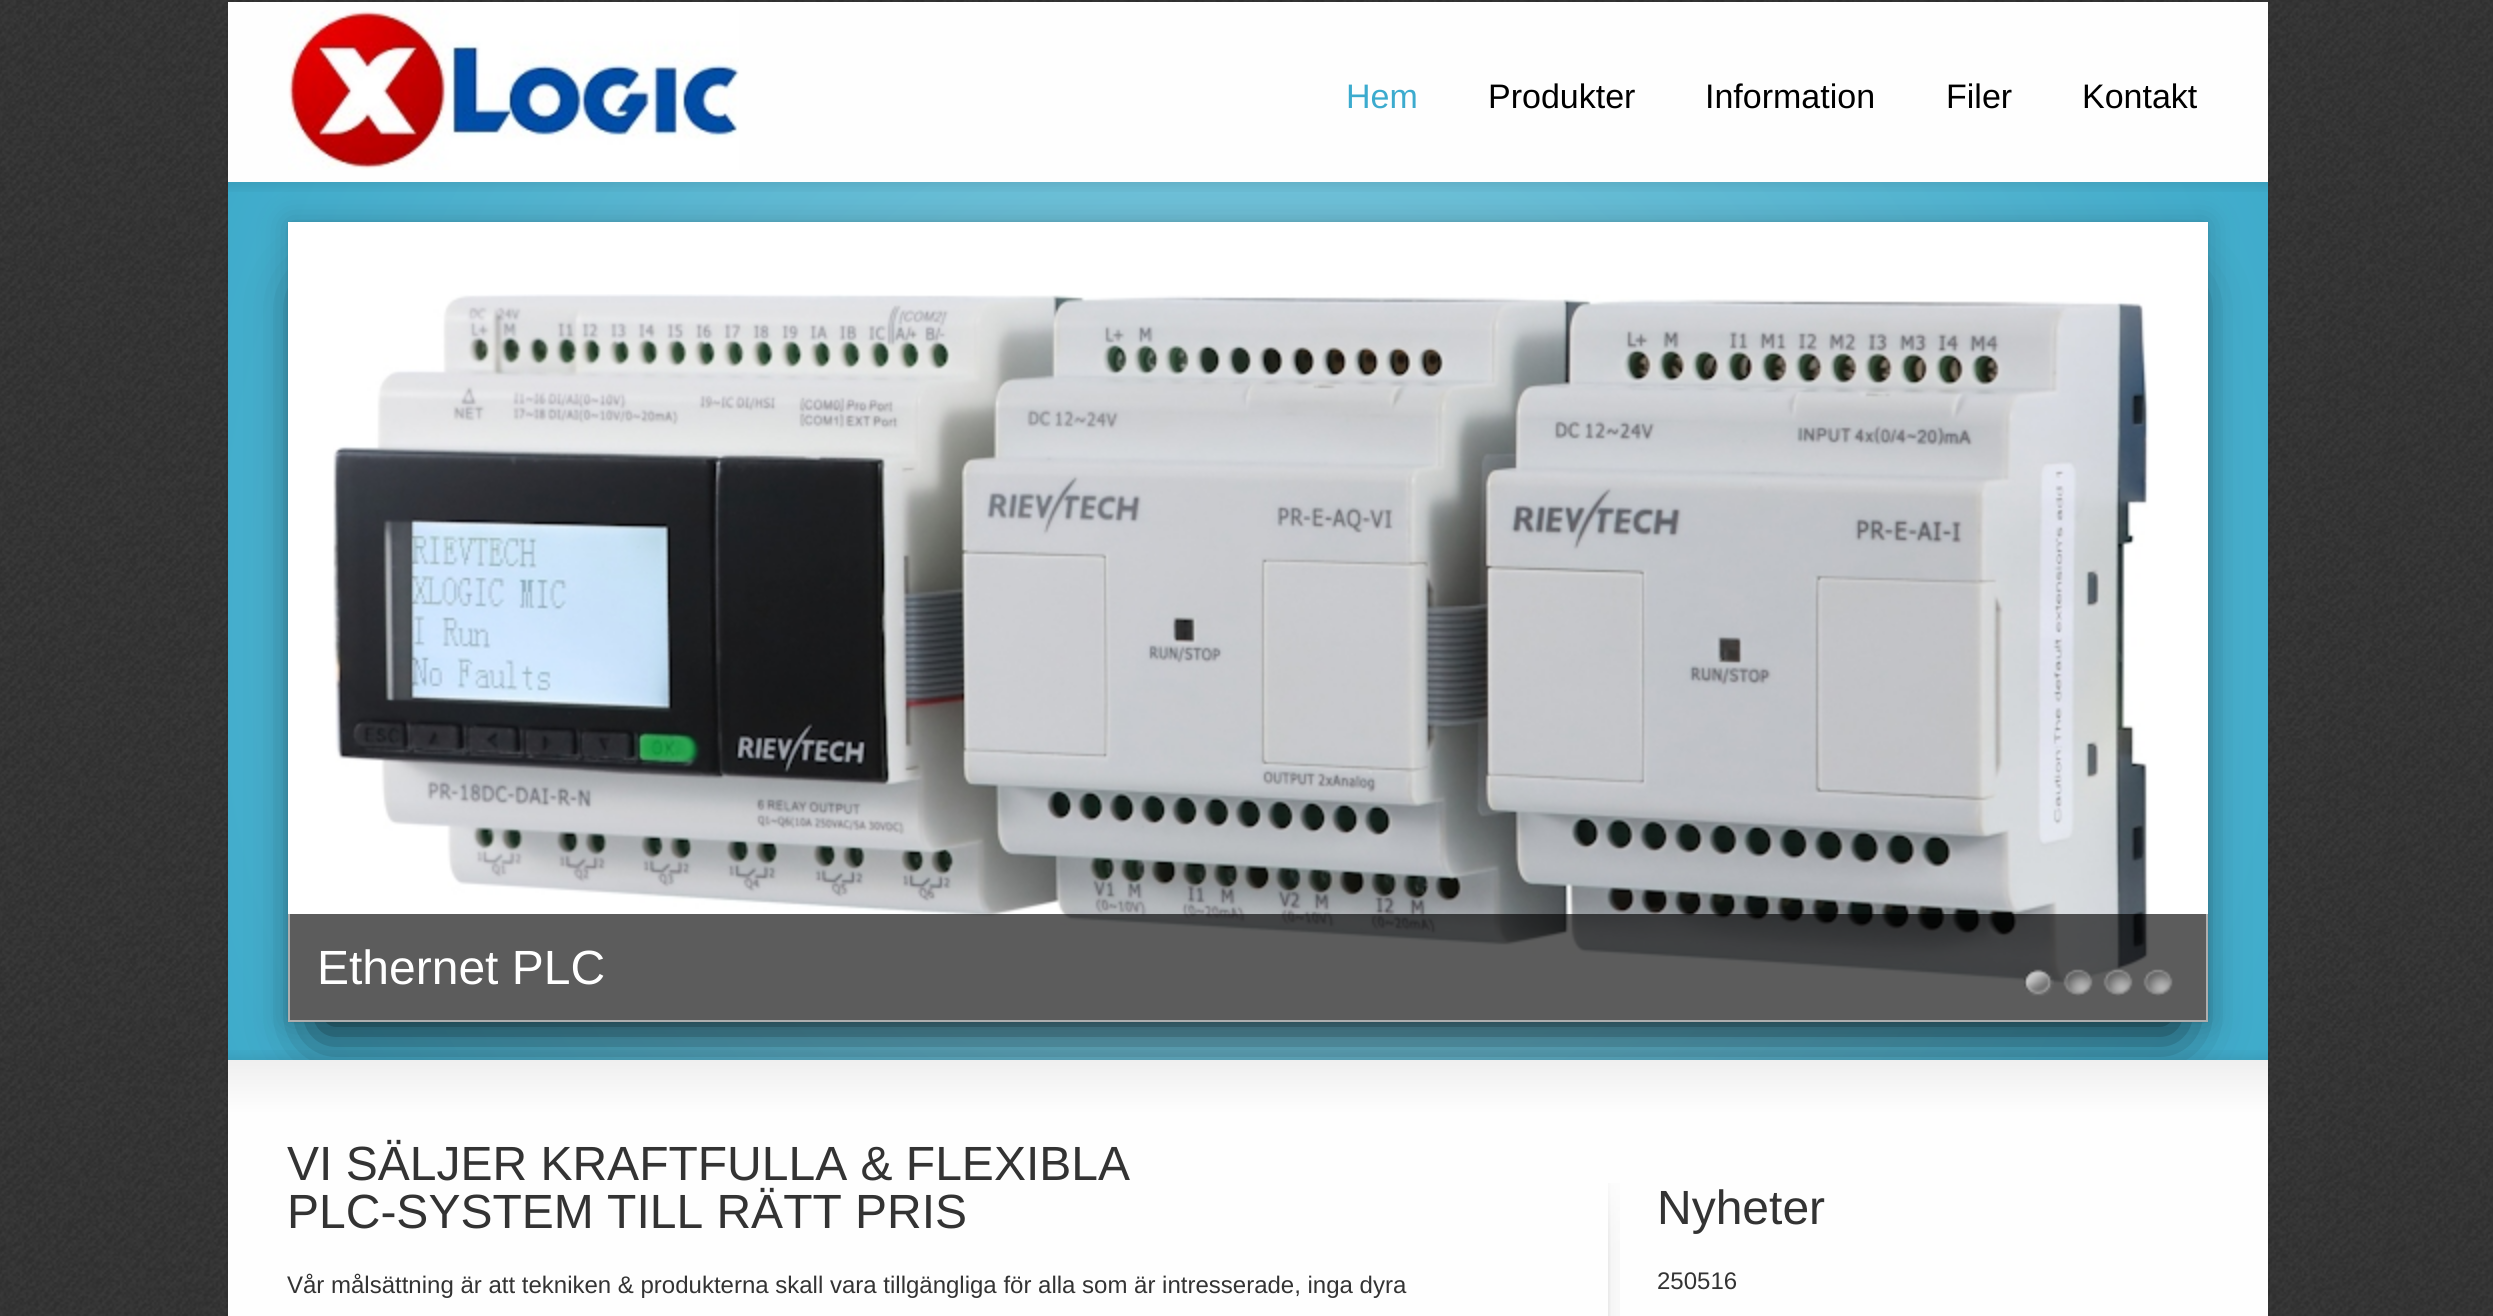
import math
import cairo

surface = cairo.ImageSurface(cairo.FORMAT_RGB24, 2493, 1316)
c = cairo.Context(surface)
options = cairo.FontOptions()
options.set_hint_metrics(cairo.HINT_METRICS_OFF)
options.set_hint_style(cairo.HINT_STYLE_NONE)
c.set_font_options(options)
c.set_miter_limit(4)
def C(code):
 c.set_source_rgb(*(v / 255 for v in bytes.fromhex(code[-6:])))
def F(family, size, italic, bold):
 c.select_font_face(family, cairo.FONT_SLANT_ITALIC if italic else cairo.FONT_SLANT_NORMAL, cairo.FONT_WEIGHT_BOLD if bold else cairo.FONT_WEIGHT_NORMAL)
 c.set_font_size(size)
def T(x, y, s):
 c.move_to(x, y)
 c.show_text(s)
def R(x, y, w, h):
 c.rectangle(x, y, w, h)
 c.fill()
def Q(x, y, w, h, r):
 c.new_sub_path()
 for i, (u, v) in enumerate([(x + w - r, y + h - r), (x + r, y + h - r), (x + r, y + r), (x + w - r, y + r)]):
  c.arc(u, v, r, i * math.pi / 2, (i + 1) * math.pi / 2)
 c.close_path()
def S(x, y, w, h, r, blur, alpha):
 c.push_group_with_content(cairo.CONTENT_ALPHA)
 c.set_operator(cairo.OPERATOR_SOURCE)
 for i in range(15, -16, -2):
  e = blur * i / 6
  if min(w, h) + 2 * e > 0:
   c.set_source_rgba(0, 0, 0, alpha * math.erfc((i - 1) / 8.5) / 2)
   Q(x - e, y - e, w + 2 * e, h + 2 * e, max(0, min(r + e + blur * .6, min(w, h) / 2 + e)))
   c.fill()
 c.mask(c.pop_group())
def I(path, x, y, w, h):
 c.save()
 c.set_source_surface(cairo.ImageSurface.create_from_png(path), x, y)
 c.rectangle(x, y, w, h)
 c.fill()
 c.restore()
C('ffffff')
c.paint()
I('1.png',0,0,2493,1316)
c.rectangle(227,1,2042,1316)
c.set_source_rgba(0,0,0,0.05)
c.stroke()
gradient = cairo.RadialGradient(1248,621,0,1248,621,1110)
gradient.add_color_stop_rgba(0,0.545,0.804,0.878,1)
gradient.add_color_stop_rgba(1,0.243,0.671,0.796,1)
c.set_source(gradient)
R(228,182,2040,878)
I('3.png',228,182,2040,10)
I('9.png',228,1050,2040,10)
C('000000')
S(288,222,1920,800,0,15,.2)
C('fefefe')
R(228,2,2040,180)
I('2.png',288,10,451,160)
F('Liberation Sans',34,0,0)
C('3cabce')
T(1346,108,'Hem')
C('000000')
T(1488,108,'Produkter')
T(1705,108,'Information')
T(1946,108,'Filer')
T(2082,108,'Kontakt')
C('000000')
S(318,292,1860,740,0,30,.8)
S(288,222,1920,800,0,1,.1)
C('ffffff')
R(288,222,1920,800)
I('4.png',333,294,1816,689)
c.set_source_rgba(0,0,0,0.64)
R(288,914,1920,108)
c.rectangle(289,223,1918,798)
c.set_source_rgba(1,1,1,0.5)
c.stroke()
F('Liberation Sans',48,0,0)
C('ffffff')
T(317,984,'Ethernet PLC')
I('5.png',2023,969,31,27)
I('6.png',2063,969,30,27)
I('7.png',2103,969,30,27)
I('8.png',2143,969,30,27)
C('fefefe')
R(228,1114,2040,202)
gradient = cairo.LinearGradient(1248,1060,1248,1114)
gradient.add_color_stop_rgba(0,0.937,0.937,0.937,1)
gradient.add_color_stop_rgba(1,0.996,0.996,0.996,1)
c.set_source(gradient)
R(228,1060,2040,54)
C('333333')
T(287,1180,'VI SÄLJER KRAFTFULLA & FLEXIBLA')
T(287,1228,'PLC-SYSTEM TILL RÄTT PRIS')
F('Liberation Sans',24,0,0)
T(287,1293,'Vår målsättning är att tekniken & produkterna skall vara tillgängliga för alla som är intresserade, inga dyra')
I('10.png',1608,1183,12,133)
F('Liberation Sans',48,0,0)
T(1657,1224,'Nyheter')
F('Liberation Sans',24,0,0)
T(1657,1289,'250516')
surface.write_to_png('o.png')
